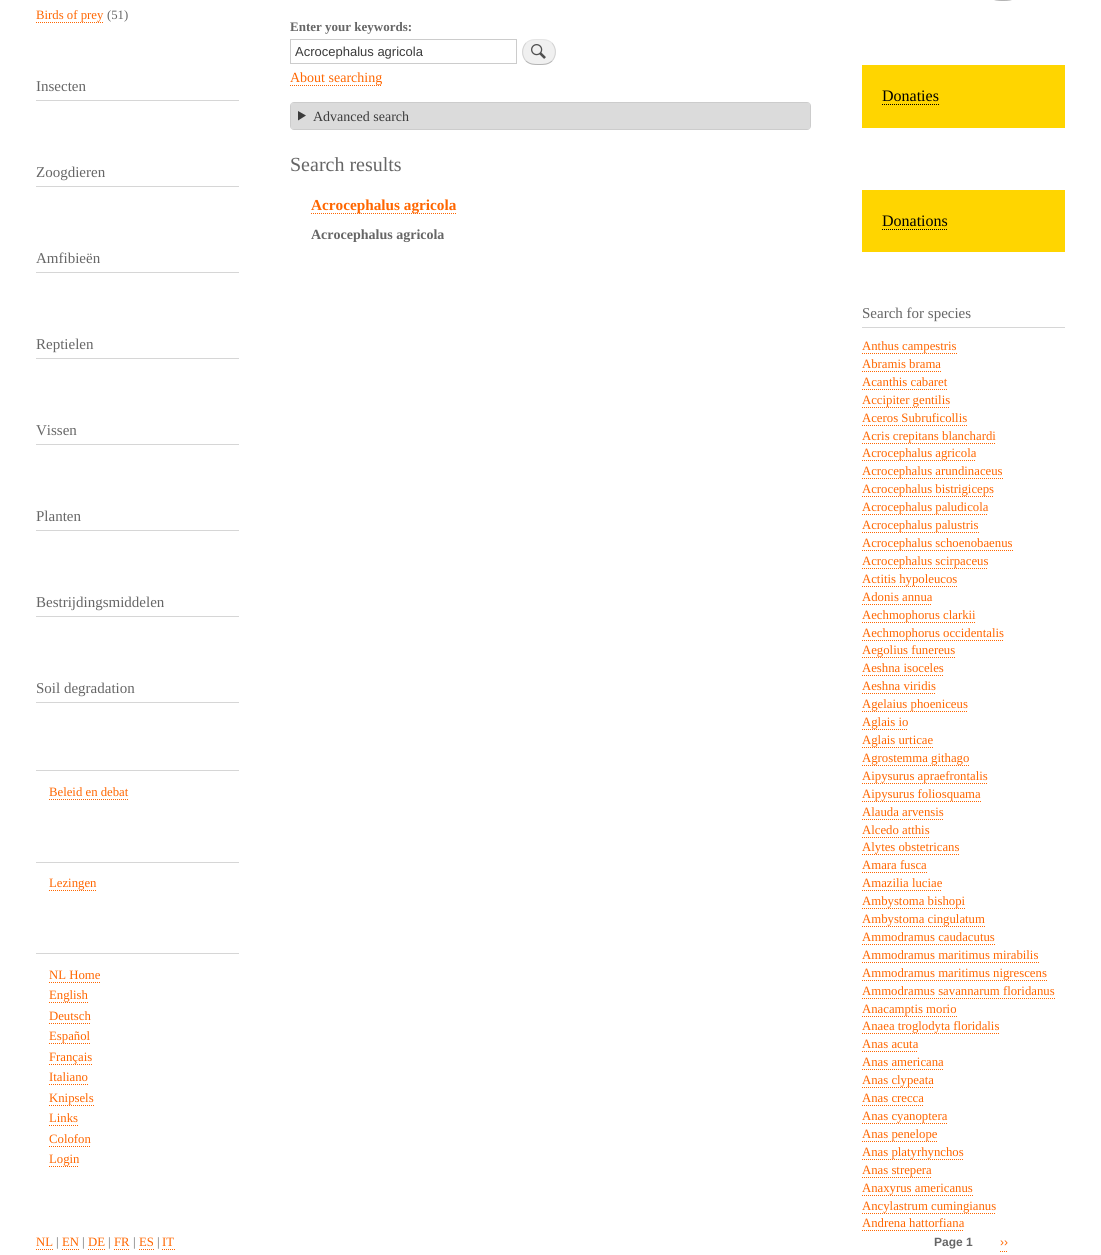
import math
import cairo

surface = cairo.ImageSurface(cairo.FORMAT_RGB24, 1101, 1255)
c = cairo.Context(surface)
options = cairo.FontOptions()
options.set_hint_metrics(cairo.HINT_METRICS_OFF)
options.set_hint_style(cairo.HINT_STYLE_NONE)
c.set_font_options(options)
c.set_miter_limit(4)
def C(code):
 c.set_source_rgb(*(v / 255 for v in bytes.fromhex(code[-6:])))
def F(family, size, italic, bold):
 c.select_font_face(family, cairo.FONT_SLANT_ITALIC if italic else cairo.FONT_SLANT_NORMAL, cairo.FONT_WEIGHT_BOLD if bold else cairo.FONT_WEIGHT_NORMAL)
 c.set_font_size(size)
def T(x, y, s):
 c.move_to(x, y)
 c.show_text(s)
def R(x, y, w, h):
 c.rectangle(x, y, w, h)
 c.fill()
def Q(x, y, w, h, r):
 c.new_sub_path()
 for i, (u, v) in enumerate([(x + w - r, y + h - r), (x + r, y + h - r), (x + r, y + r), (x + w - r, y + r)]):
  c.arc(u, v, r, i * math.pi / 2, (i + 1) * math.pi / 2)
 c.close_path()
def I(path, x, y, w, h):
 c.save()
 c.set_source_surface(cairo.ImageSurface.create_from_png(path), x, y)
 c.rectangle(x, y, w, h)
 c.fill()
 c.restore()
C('ffffff')
c.paint()
F('Liberation Serif',12.75,0,0)
C('ff6600')
T(36,19,'Birds of prey')
c.new_path()
c.move_to(36,22.5)
c.line_to(103,22.5)
c.set_line_width(1)
c.set_dash([1,1])
c.stroke()
C('666666')
T(107,19,'(51)')
C('d6d6d6')
R(36,100,203,1)
F('Liberation Serif',15,0,0)
C('666666')
T(36,91,'Insecten')
C('d6d6d6')
R(36,186,203,1)
C('666666')
T(36,177,'Zoogdieren')
C('d6d6d6')
R(36,272,203,1)
C('666666')
T(36,263,'Amfibieën')
C('d6d6d6')
R(36,358,203,1)
C('666666')
T(36,349,'Reptielen')
C('d6d6d6')
R(36,444,203,1)
C('666666')
T(36,435,'Vissen')
C('d6d6d6')
R(36,530,203,1)
C('666666')
T(36,521,'Planten')
C('d6d6d6')
R(36,616,203,1)
C('666666')
T(36,607,'Bestrijdingsmiddelen')
C('d6d6d6')
R(36,702,203,1)
C('666666')
T(36,693,'Soil degradation')
C('d6d6d6')
R(36,770,203,1)
F('Liberation Serif',12.75,0,0)
C('ff6600')
T(49,796,'Beleid en debat')
c.new_path()
c.move_to(49,799.5)
c.line_to(128,799.5)
c.stroke()
C('d6d6d6')
R(36,862,203,1)
C('ff6600')
T(49,887,'Lezingen')
c.new_path()
c.move_to(49,890.5)
c.line_to(96,890.5)
c.stroke()
C('d6d6d6')
R(36,953,203,1)
C('ff6600')
T(49,979,'NL Home')
c.new_path()
c.move_to(49,982.5)
c.line_to(100,982.5)
c.stroke()
T(49,999,'English')
c.new_path()
c.move_to(49,1002.5)
c.line_to(88,1002.5)
c.stroke()
T(49,1020,'Deutsch')
c.new_path()
c.move_to(49,1023.5)
c.line_to(91,1023.5)
c.stroke()
T(49,1040,'Español')
c.new_path()
c.move_to(49,1043.5)
c.line_to(90,1043.5)
c.stroke()
T(49,1061,'Français')
c.new_path()
c.move_to(49,1064.5)
c.line_to(92,1064.5)
c.stroke()
T(49,1081,'Italiano')
c.new_path()
c.move_to(49,1084.5)
c.line_to(88,1084.5)
c.stroke()
T(49,1102,'Knipsels')
c.new_path()
c.move_to(49,1105.5)
c.line_to(94,1105.5)
c.stroke()
T(49,1122,'Links')
c.new_path()
c.move_to(49,1125.5)
c.line_to(78,1125.5)
c.stroke()
T(49,1143,'Colofon')
c.new_path()
c.move_to(49,1146.5)
c.line_to(91,1146.5)
c.stroke()
T(49,1163,'Login')
c.new_path()
c.move_to(49,1166.5)
c.line_to(79,1166.5)
c.stroke()
T(36,1246,'NL')
c.new_path()
c.move_to(36,1249.5)
c.line_to(53,1249.5)
c.stroke()
C('666666')
T(56,1246,'|')
C('ff6600')
T(62,1246,'EN')
c.new_path()
c.move_to(62,1249.5)
c.line_to(79,1249.5)
c.stroke()
C('666666')
T(82,1246,'|')
C('ff6600')
T(88,1246,'DE')
c.new_path()
c.move_to(88,1249.5)
c.line_to(105,1249.5)
c.stroke()
C('666666')
T(108,1246,'|')
C('ff6600')
T(114,1246,'FR')
c.new_path()
c.move_to(114,1249.5)
c.line_to(130,1249.5)
c.stroke()
C('666666')
T(133,1246,'|')
C('ff6600')
T(139,1246,'ES')
c.new_path()
c.move_to(139,1249.5)
c.line_to(154,1249.5)
c.stroke()
C('666666')
T(157,1246,'|')
C('ff6600')
T(162,1246,'IT')
c.new_path()
c.move_to(162,1249.5)
c.line_to(175,1249.5)
c.stroke()
F('Liberation Serif',13,0,1)
C('666666')
T(290,31,'Enter your keywords:')
c.rectangle(290.5,39.5,226,24)
C('cccccc')
c.set_dash([])
c.stroke()
F('Liberation Sans',13,0,0)
C('3b3b3b')
T(295,56,'Acrocephalus agricola')
C('f0f0f0')
Q(522,39,34,26,13)
c.fill()
I('1.png',531,44,15,15)
c.new_path()
c.move_to(526,43)
c.curve_to(530,39.5,534,39.5,539,39.5)
c.curve_to(544,39.5,548,39.5,552,43)
C('e4e4e4')
c.stroke()
c.new_path()
c.move_to(552,43)
c.curve_to(556.5,48,556.5,56,552,61)
C('d2d2d2')
c.stroke()
c.new_path()
c.move_to(552,61)
c.curve_to(548,64.5,544,64.5,539,64.5)
c.curve_to(534,64.5,530,64.5,526,61)
C('b4b4b4')
c.stroke()
c.new_path()
c.move_to(526,61)
c.curve_to(521.5,56,521.5,48,526,43)
C('d2d2d2')
c.stroke()
F('Liberation Serif',14,0,0)
C('ff6600')
T(290,82,'About searching')
c.new_path()
c.move_to(290,85.5)
c.line_to(382,85.5)
c.set_dash([1,1])
c.stroke()
Q(290.5,102.5,520,27,3.5)
C('cccccc')
c.set_dash([])
c.stroke()
C('dbdbdb')
R(291,103,519,26)
C('3b3b3b')
c.new_path()
c.move_to(298,111)
c.line_to(306,115.5)
c.line_to(298,120.5)
c.close_path()
c.fill()
T(313,121,'Advanced search')
F('Liberation Serif',20,0,0)
C('666666')
T(290,171,'Search results')
c.new_path()
c.move_to(311,213.5)
c.line_to(457,213.5)
C('ff6600')
c.set_dash([1,1])
c.stroke()
F('Liberation Serif',15.25,0,1)
T(311,210,'Acrocephalus agricola')
F('Liberation Serif',14,0,1)
C('666666')
T(311,239,'Acrocephalus agricola')
c.new_path()
c.move_to(1016,-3)
c.curve_to(1012,.5,1008,.5,1003,.5)
c.curve_to(998,.5,994,.5,990,-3)
C('b4b4b4')
c.set_dash([])
c.stroke()
C('ffd500')
R(862,65,203,63)
F('Liberation Serif',16,0,0)
C('000000')
T(882,101,'Donaties')
c.new_path()
c.move_to(882,104.5)
c.line_to(939,104.5)
c.set_dash([1,1])
c.stroke()
C('ffd500')
R(862,190,203,62)
C('000000')
T(882,226,'Donations')
c.new_path()
c.move_to(882,229.5)
c.line_to(948,229.5)
c.stroke()
C('d6d6d6')
R(862,327,203,1)
F('Liberation Serif',15,0,0)
C('666666')
T(862,318,'Search for species')
F('Liberation Serif',12.75,0,0)
C('ff6600')
T(862,350,'Anthus campestris')
c.new_path()
c.move_to(862,353.5)
c.line_to(957,353.5)
c.stroke()
T(862,368,'Abramis brama')
c.new_path()
c.move_to(862,371.5)
c.line_to(941,371.5)
c.stroke()
T(862,386,'Acanthis cabaret')
c.new_path()
c.move_to(862,389.5)
c.line_to(947,389.5)
c.stroke()
T(862,404,'Accipiter gentilis')
c.new_path()
c.move_to(862,407.5)
c.line_to(950,407.5)
c.stroke()
T(862,422,'Aceros Subruficollis')
c.new_path()
c.move_to(862,425.5)
c.line_to(967,425.5)
c.stroke()
T(862,440,'Acris crepitans blanchardi')
c.new_path()
c.move_to(862,443.5)
c.line_to(996,443.5)
c.stroke()
T(862,457,'Acrocephalus agricola')
c.new_path()
c.move_to(862,460.5)
c.line_to(976,460.5)
c.stroke()
T(862,475,'Acrocephalus arundinaceus')
c.new_path()
c.move_to(862,478.5)
c.line_to(1003,478.5)
c.stroke()
T(862,493,'Acrocephalus bistrigiceps')
c.new_path()
c.move_to(862,496.5)
c.line_to(994,496.5)
c.stroke()
T(862,511,'Acrocephalus paludicola')
c.new_path()
c.move_to(862,514.5)
c.line_to(988,514.5)
c.stroke()
T(862,529,'Acrocephalus palustris')
c.new_path()
c.move_to(862,532.5)
c.line_to(979,532.5)
c.stroke()
T(862,547,'Acrocephalus schoenobaenus')
c.new_path()
c.move_to(862,550.5)
c.line_to(1013,550.5)
c.stroke()
T(862,565,'Acrocephalus scirpaceus')
c.new_path()
c.move_to(862,568.5)
c.line_to(988,568.5)
c.stroke()
T(862,583,'Actitis hypoleucos')
c.new_path()
c.move_to(862,586.5)
c.line_to(957,586.5)
c.stroke()
T(862,601,'Adonis annua')
c.new_path()
c.move_to(862,604.5)
c.line_to(932,604.5)
c.stroke()
T(862,619,'Aechmophorus clarkii')
c.new_path()
c.move_to(862,622.5)
c.line_to(976,622.5)
c.stroke()
T(862,637,'Aechmophorus occidentalis')
c.new_path()
c.move_to(862,640.5)
c.line_to(1004,640.5)
c.stroke()
T(862,654,'Aegolius funereus')
c.new_path()
c.move_to(862,657.5)
c.line_to(955,657.5)
c.stroke()
T(862,672,'Aeshna isoceles')
c.new_path()
c.move_to(862,675.5)
c.line_to(944,675.5)
c.stroke()
T(862,690,'Aeshna viridis')
c.new_path()
c.move_to(862,693.5)
c.line_to(936,693.5)
c.stroke()
T(862,708,'Agelaius phoeniceus')
c.new_path()
c.move_to(862,711.5)
c.line_to(968,711.5)
c.stroke()
T(862,726,'Aglais io')
c.new_path()
c.move_to(862,729.5)
c.line_to(908,729.5)
c.stroke()
T(862,744,'Aglais urticae')
c.new_path()
c.move_to(862,747.5)
c.line_to(933,747.5)
c.stroke()
T(862,762,'Agrostemma githago')
c.new_path()
c.move_to(862,765.5)
c.line_to(969,765.5)
c.stroke()
T(862,780,'Aipysurus apraefrontalis')
c.new_path()
c.move_to(862,783.5)
c.line_to(988,783.5)
c.stroke()
T(862,798,'Aipysurus foliosquama')
c.new_path()
c.move_to(862,801.5)
c.line_to(981,801.5)
c.stroke()
T(862,816,'Alauda arvensis')
c.new_path()
c.move_to(862,819.5)
c.line_to(944,819.5)
c.stroke()
T(862,834,'Alcedo atthis')
c.new_path()
c.move_to(862,837.5)
c.line_to(930,837.5)
c.stroke()
T(862,851,'Alytes obstetricans')
c.new_path()
c.move_to(862,854.5)
c.line_to(959,854.5)
c.stroke()
T(862,869,'Amara fusca')
c.new_path()
c.move_to(862,872.5)
c.line_to(927,872.5)
c.stroke()
T(862,887,'Amazilia luciae')
c.new_path()
c.move_to(862,890.5)
c.line_to(942,890.5)
c.stroke()
T(862,905,'Ambystoma bishopi')
c.new_path()
c.move_to(862,908.5)
c.line_to(965,908.5)
c.stroke()
T(862,923,'Ambystoma cingulatum')
c.new_path()
c.move_to(862,926.5)
c.line_to(985,926.5)
c.stroke()
T(862,941,'Ammodramus caudacutus')
c.new_path()
c.move_to(862,944.5)
c.line_to(995,944.5)
c.stroke()
T(862,959,'Ammodramus maritimus mirabilis')
c.new_path()
c.move_to(862,962.5)
c.line_to(1039,962.5)
c.stroke()
T(862,977,'Ammodramus maritimus nigrescens')
c.new_path()
c.move_to(862,980.5)
c.line_to(1047,980.5)
c.stroke()
T(862,995,'Ammodramus savannarum floridanus')
c.new_path()
c.move_to(862,998.5)
c.line_to(1055,998.5)
c.stroke()
T(862,1013,'Anacamptis morio')
c.new_path()
c.move_to(862,1016.5)
c.line_to(957,1016.5)
c.stroke()
T(862,1030,'Anaea troglodyta floridalis')
c.new_path()
c.move_to(862,1033.5)
c.line_to(999,1033.5)
c.stroke()
T(862,1048,'Anas acuta')
c.new_path()
c.move_to(862,1051.5)
c.line_to(918,1051.5)
c.stroke()
T(862,1066,'Anas americana')
c.new_path()
c.move_to(862,1069.5)
c.line_to(944,1069.5)
c.stroke()
T(862,1084,'Anas clypeata')
c.new_path()
c.move_to(862,1087.5)
c.line_to(934,1087.5)
c.stroke()
T(862,1102,'Anas crecca')
c.new_path()
c.move_to(862,1105.5)
c.line_to(924,1105.5)
c.stroke()
T(862,1120,'Anas cyanoptera')
c.new_path()
c.move_to(862,1123.5)
c.line_to(947,1123.5)
c.stroke()
T(862,1138,'Anas penelope')
c.new_path()
c.move_to(862,1141.5)
c.line_to(937,1141.5)
c.stroke()
T(862,1156,'Anas platyrhynchos')
c.new_path()
c.move_to(862,1159.5)
c.line_to(964,1159.5)
c.stroke()
T(862,1174,'Anas strepera')
c.new_path()
c.move_to(862,1177.5)
c.line_to(932,1177.5)
c.stroke()
T(862,1192,'Anaxyrus americanus')
c.new_path()
c.move_to(862,1195.5)
c.line_to(973,1195.5)
c.stroke()
T(862,1210,'Ancylastrum cumingianus')
c.new_path()
c.move_to(862,1213.5)
c.line_to(996,1213.5)
c.stroke()
T(862,1227,'Andrena hattorfiana')
c.new_path()
c.move_to(862,1230.5)
c.line_to(964,1230.5)
c.stroke()
F('Liberation Sans',12,0,1)
C('666666')
T(934,1246,'Page 1')
c.new_path()
c.move_to(1000,1251.5)
c.line_to(1008,1251.5)
C('ff6600')
c.stroke()
F('Liberation Sans',12,0,0)
T(1000,1246,'››')
surface.write_to_png('o.png')
